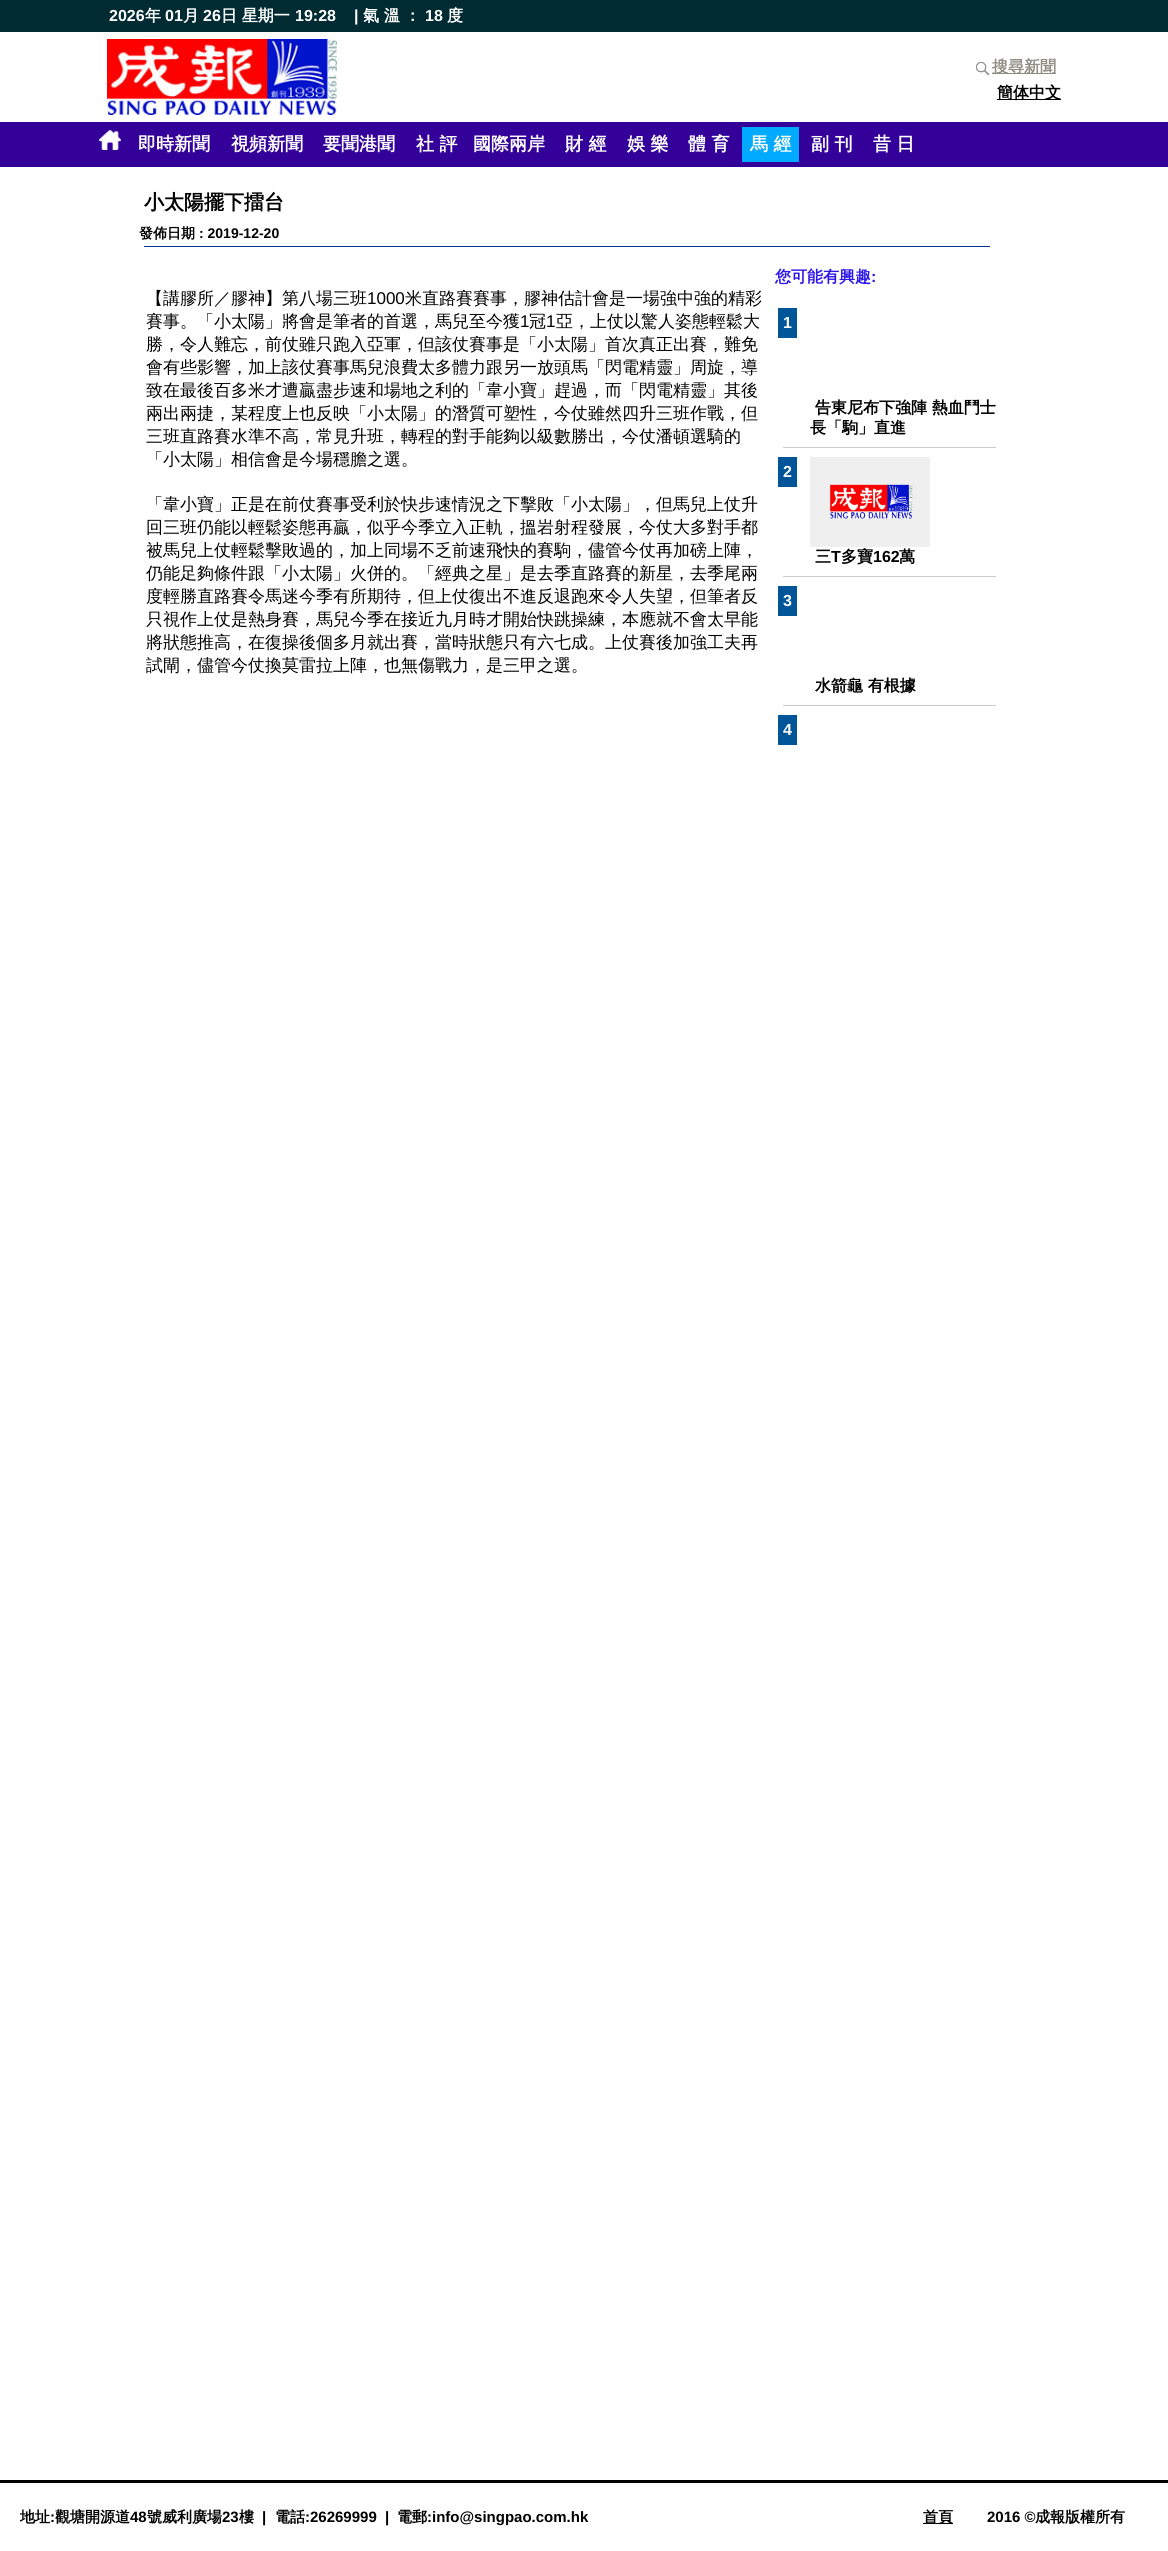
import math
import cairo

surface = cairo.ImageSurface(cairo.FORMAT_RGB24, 1168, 2551)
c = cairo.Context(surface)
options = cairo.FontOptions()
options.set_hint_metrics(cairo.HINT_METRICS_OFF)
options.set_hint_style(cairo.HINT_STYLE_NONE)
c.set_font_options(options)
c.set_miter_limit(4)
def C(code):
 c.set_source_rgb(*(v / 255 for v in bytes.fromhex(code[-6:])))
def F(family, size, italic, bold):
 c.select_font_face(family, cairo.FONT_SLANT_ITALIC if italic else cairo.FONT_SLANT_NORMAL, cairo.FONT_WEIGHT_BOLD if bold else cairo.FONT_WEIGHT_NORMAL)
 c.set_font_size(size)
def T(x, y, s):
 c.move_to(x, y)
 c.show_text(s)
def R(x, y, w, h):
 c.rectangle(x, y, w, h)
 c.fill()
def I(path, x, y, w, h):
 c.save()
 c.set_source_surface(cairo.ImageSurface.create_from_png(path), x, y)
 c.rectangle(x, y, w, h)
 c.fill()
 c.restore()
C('ffffff')
c.paint()
C('002b33')
R(0,0,1168,32)
F('Liberation Sans',16,0,1)
C('ffffff')
T(109,21,'2026')
F('WenQuanYi Zen Hei',16,0,1)
T(145,21,'年')
F('Liberation Sans',16,0,1)
T(165,21,'01')
F('WenQuanYi Zen Hei',16,0,1)
T(183,21,'月')
F('Liberation Sans',16,0,1)
T(203,21,'26')
F('WenQuanYi Zen Hei',16,0,1)
T(221,21,'日 星期一')
F('Liberation Sans',16,0,1)
T(295,21,'19:28')
T(354,21,'|')
F('WenQuanYi Zen Hei',16,0,1)
T(363,21,'氣 溫 ：')
F('Liberation Sans',16,0,1)
T(425,21,'18')
F('WenQuanYi Zen Hei',16,0,1)
T(447,21,'度')
I('1.png',107,39,230,76)
I('2.png',975,61,15,15)
C('8e8d84')
R(992,73,64,1)
T(992,72,'搜尋新聞')
C('000000')
R(997,99,64,1)
T(997,98,'簡体中文')
C('330099')
R(0,122,1168,45)
I('3.png',99,130,22,20)
F('WenQuanYi Zen Hei',18,0,1)
C('ffffff')
T(138,150,'即時新聞')
T(231,150,'視頻新聞')
T(323,150,'要聞港聞')
T(416,150,'社 評')
T(473,150,'國際兩岸')
T(565,150,'財 經')
T(627,150,'娛 樂')
T(688,150,'體 育')
C('00aaff')
R(742,127,57,35)
C('ffffff')
T(750,150,'馬 經')
T(811,150,'副 刊')
T(873,150,'昔 日')
F('WenQuanYi Zen Hei',20,0,1)
C('000000')
T(144,209,'小太陽擺下擂台')
F('WenQuanYi Zen Hei',14,0,1)
T(139,238,'發佈日期')
F('Liberation Sans',14,0,1)
T(199,238,': 2019-12-20')
C('003399')
R(144,246,846,1)
F('WenQuanYi Zen Hei Medium',17,0,0)
C('000000')
T(146,304,'【講膠所／膠神】第八場三班')
F('Liberation Sans',17,0,0)
T(367,304,'1000')
F('WenQuanYi Zen Hei Medium',17,0,0)
T(405,304,'米直路賽賽事，膠神估計會是一場強中強的精彩')
T(146,327,'賽事。「小太陽」將會是筆者的首選，馬兒至今獲')
F('Liberation Sans',17,0,0)
T(520,327,'1')
F('WenQuanYi Zen Hei Medium',17,0,0)
T(529,327,'冠')
F('Liberation Sans',17,0,0)
T(546,327,'1')
F('WenQuanYi Zen Hei Medium',17,0,0)
T(556,327,'亞，上仗以驚人姿態輕鬆大')
T(146,350,'勝，令人難忘，前仗雖只跑入亞軍，但該仗賽事是「小太陽」首次真正出賽，難免')
T(146,373,'會有些影響，加上該仗賽事馬兒浪費太多體力跟另一放頭馬「閃電精靈」周旋，導')
T(146,396,'致在最後百多米才遭贏盡步速和場地之利的「韋小寶」趕過，而「閃電精靈」其後')
T(146,419,'兩出兩捷，某程度上也反映「小太陽」的潛質可塑性，今仗雖然四升三班作戰，但')
T(146,442,'三班直路賽水準不高，常見升班，轉程的對手能夠以級數勝出，今仗潘頓選騎的')
T(146,465,'「小太陽」相信會是今場穩膽之選。')
T(146,510,'「韋小寶」正是在前仗賽事受利於快步速情況之下擊敗「小太陽」，但馬兒上仗升')
T(146,533,'回三班仍能以輕鬆姿態再贏，似乎今季立入正軌，搵岩射程發展，今仗大多對手都')
T(146,556,'被馬兒上仗輕鬆擊敗過的，加上同場不乏前速飛快的賽駒，儘管今仗再加磅上陣，')
T(146,579,'仍能足夠條件跟「小太陽」火併的。「經典之星」是去季直路賽的新星，去季尾兩')
T(146,602,'度輕勝直路賽令馬迷今季有所期待，但上仗復出不進反退跑來令人失望，但筆者反')
T(146,625,'只視作上仗是熱身賽，馬兒今季在接近九月時才開始快跳操練，本應就不會太早能')
T(146,648,'將狀態推高，在復操後個多月就出賽，當時狀態只有六七成。上仗賽後加強工夫再')
T(146,671,'試閘，儘管今仗換莫雷拉上陣，也無傷戰力，是三甲之選。')
F('WenQuanYi Zen Hei',16,0,1)
C('2d17e8')
T(775,282,'您可能有興趣')
F('Liberation Sans',16,0,1)
T(871,282,':')
C('005599')
R(778,308,19,30)
C('ffffff')
T(783,328,'1')
F('WenQuanYi Zen Hei',16,0,1)
C('000000')
T(815,413,'告東尼布下強陣 熱血鬥士')
T(810,433,'長「駒」直進')
C('cccccc')
R(783,447,213,1)
C('005599')
R(778,457,19,30)
F('Liberation Sans',16,0,1)
C('ffffff')
T(783,477,'2')
I('4.png',810,457,120,90)
F('WenQuanYi Zen Hei',16,0,1)
C('000000')
T(815,562,'三')
F('Liberation Sans',16,0,1)
T(831,562,'T')
F('WenQuanYi Zen Hei',16,0,1)
T(841,562,'多寶')
F('Liberation Sans',16,0,1)
T(873,562,'162')
F('WenQuanYi Zen Hei',16,0,1)
T(899,562,'萬')
C('cccccc')
R(783,576,213,1)
C('005599')
R(778,586,19,30)
F('Liberation Sans',16,0,1)
C('ffffff')
T(783,606,'3')
F('WenQuanYi Zen Hei',16,0,1)
C('000000')
T(815,691,'水箭龜 有根據')
C('cccccc')
R(783,705,213,1)
C('005599')
R(778,715,19,30)
F('Liberation Sans',16,0,1)
C('ffffff')
T(783,735,'4')
C('000000')
R(0,2480,1168,3)
F('WenQuanYi Zen Hei',15,0,1)
T(20,2522,'地址')
F('Liberation Sans',15,0,1)
T(50,2522,':')
F('WenQuanYi Zen Hei',15,0,1)
T(55,2522,'觀塘開源道')
F('Liberation Sans',15,0,1)
T(130,2522,'48')
F('WenQuanYi Zen Hei',15,0,1)
T(147,2522,'號威利廣場')
F('Liberation Sans',15,0,1)
T(222,2522,'23')
F('WenQuanYi Zen Hei',15,0,1)
T(239,2522,'樓')
F('Liberation Sans',15,0,1)
T(262,2522,'|')
F('WenQuanYi Zen Hei',15,0,1)
T(275,2522,'電話')
F('Liberation Sans',15,0,1)
T(305,2522,':26269999  |')
F('WenQuanYi Zen Hei',15,0,1)
T(397,2522,'電郵')
F('Liberation Sans',15,0,1)
T(427,2522,':info@singpao.com.hk')
R(923,2523,30,1)
F('WenQuanYi Zen Hei',15,0,1)
T(923,2522,'首頁')
F('Liberation Sans',15,0,1)
T(987,2522,'2016 ©')
F('WenQuanYi Zen Hei',15,0,1)
T(1035,2522,'成報版權所有')
surface.write_to_png('o.png')
